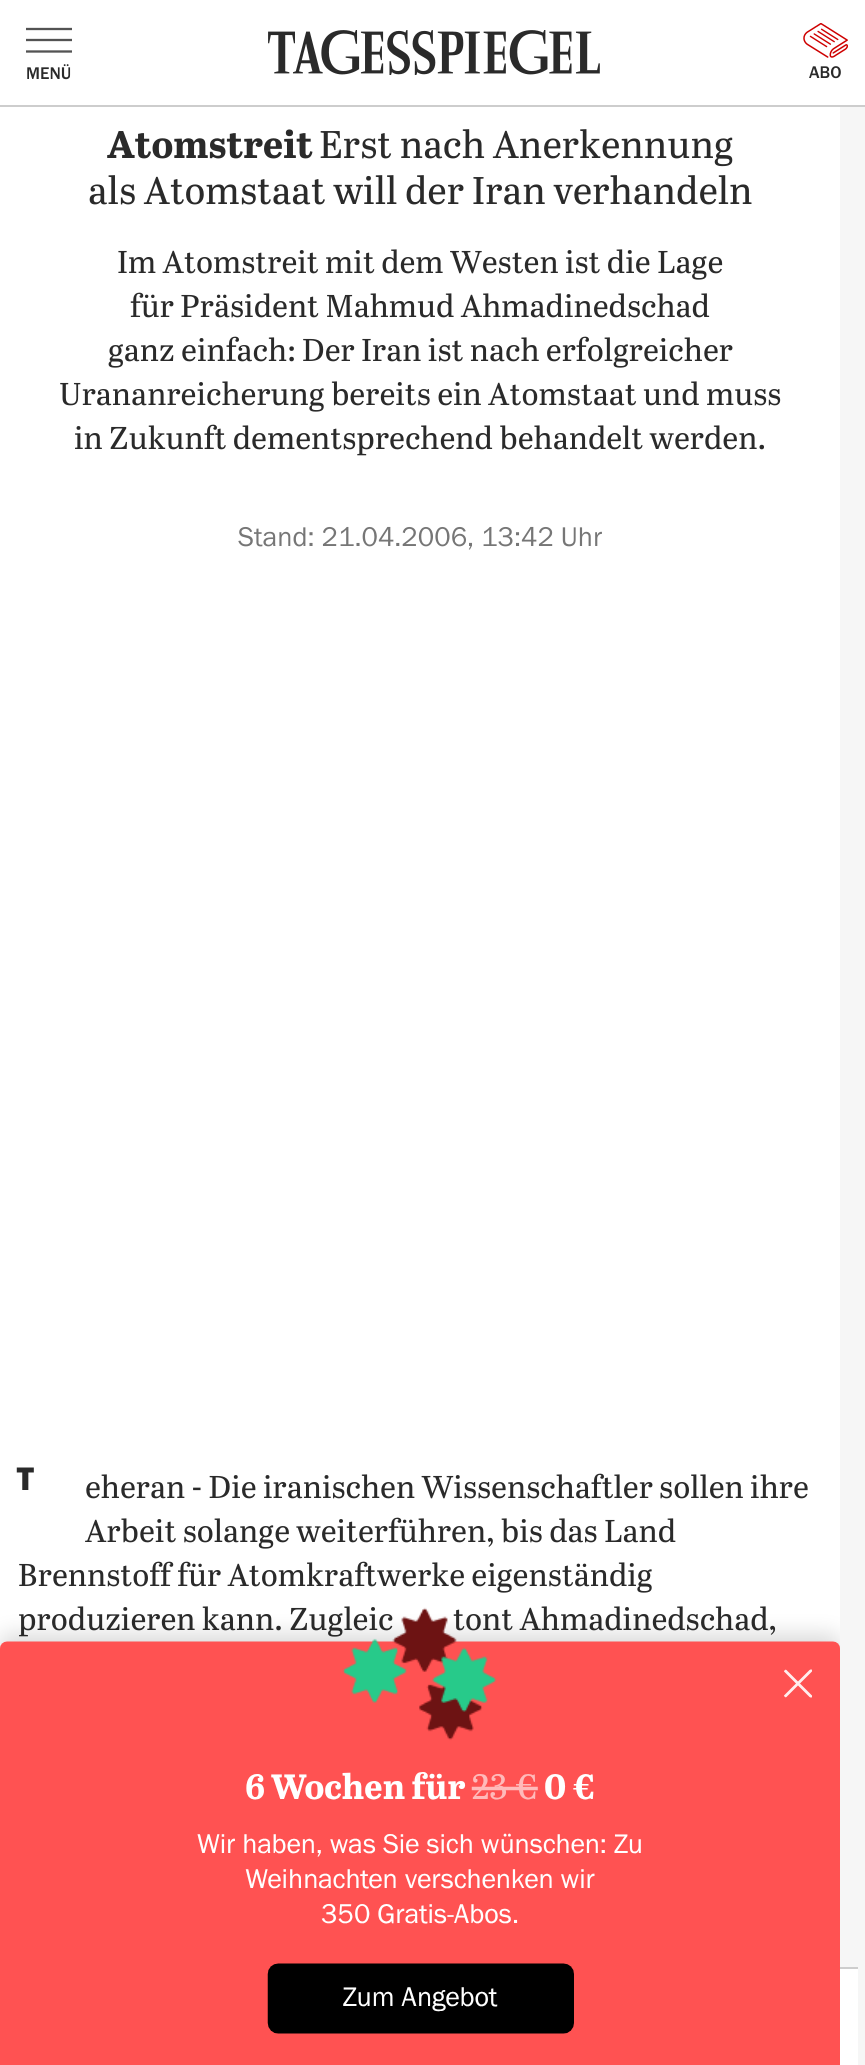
import math
import cairo

surface = cairo.ImageSurface(cairo.FORMAT_RGB24, 865, 2065)
c = cairo.Context(surface)
options = cairo.FontOptions()
options.set_hint_metrics(cairo.HINT_METRICS_OFF)
options.set_hint_style(cairo.HINT_STYLE_NONE)
c.set_font_options(options)
c.set_miter_limit(4)
def C(code):
 c.set_source_rgb(*(v / 255 for v in bytes.fromhex(code[-6:])))
def F(family, size, italic, bold):
 c.select_font_face(family, cairo.FONT_SLANT_ITALIC if italic else cairo.FONT_SLANT_NORMAL, cairo.FONT_WEIGHT_BOLD if bold else cairo.FONT_WEIGHT_NORMAL)
 c.set_font_size(size)
def T(x, y, s):
 c.move_to(x, y)
 c.show_text(s)
def R(x, y, w, h):
 c.rectangle(x, y, w, h)
 c.fill()
def I(path, x, y, w, h):
 c.save()
 c.set_source_surface(cairo.ImageSurface.create_from_png(path), x, y)
 c.rectangle(x, y, w, h)
 c.fill()
 c.restore()
C('f6f6f6')
c.paint()
C('ffffff')
R(0,0,865,105)
C('cdcdcd')
R(0,105,865,2)
c.new_path()
c.move_to(26,29)
c.line_to(72,29)
c.move_to(26,40)
c.line_to(72,40)
c.move_to(26,51.5)
c.line_to(72,51.5)
C('535353')
c.set_line_width(2.3)
c.stroke()
F('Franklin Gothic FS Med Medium',17.5,0,0)
C('2a2a2a')
T(26,79,'MENÜ')
I('1.png',268,30,332,45)
I('2.png',803,23,45,35)
T(809,78,'ABO')
C('ffffff')
R(0,107,840,1542)
F('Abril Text',38.5,0,1)
C('2a2a2a')
T(107,158,'Atomstreit')
F('Abril Text',38.5,0,0)
T(319,158,'Erst nach Anerkennung')
T(88,204,'als Atomstaat will der Iran verhandeln')
F('Abril Text',31.5,0,0)
T(117,273,'Im Atomstreit mit dem Westen ist die Lage')
T(130,317,'für Präsident Mahmud Ahmadinedschad')
T(108,361,'ganz einfach: Der Iran ist nach erfolgreicher')
T(59,405,'Urananreicherung bereits ein Atomstaat und muss')
T(74,449,'in Zukunft dementsprechend behandelt werden.')
F('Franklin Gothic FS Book',28,0,0)
C('767676')
T(238,546,'Stand: 21.04.2006, 13:42 Uhr')
F('Noto Sans Black',31.5,0,0)
C('2a2a2a')
T(16,1490,'T')
F('Abril Text',31.5,0,0)
T(85,1498,'eheran - Die iranischen Wissenschaftler sollen ihre')
T(85,1542,'Arbeit solange weiterführen, bis das Land')
T(18,1586,'Brennstoff für Atomkraftwerke eigenständig')
T(18,1630,'produzieren kann. Zugleic')
T(453,1630,'tont Ahmadinedschad,')
C('ffffff')
R(840,1969,18,96)
C('cdcdcd')
R(840,1967,18,2)
I('3.png',0,1607,840,458)
surface.write_to_png('o.png')
